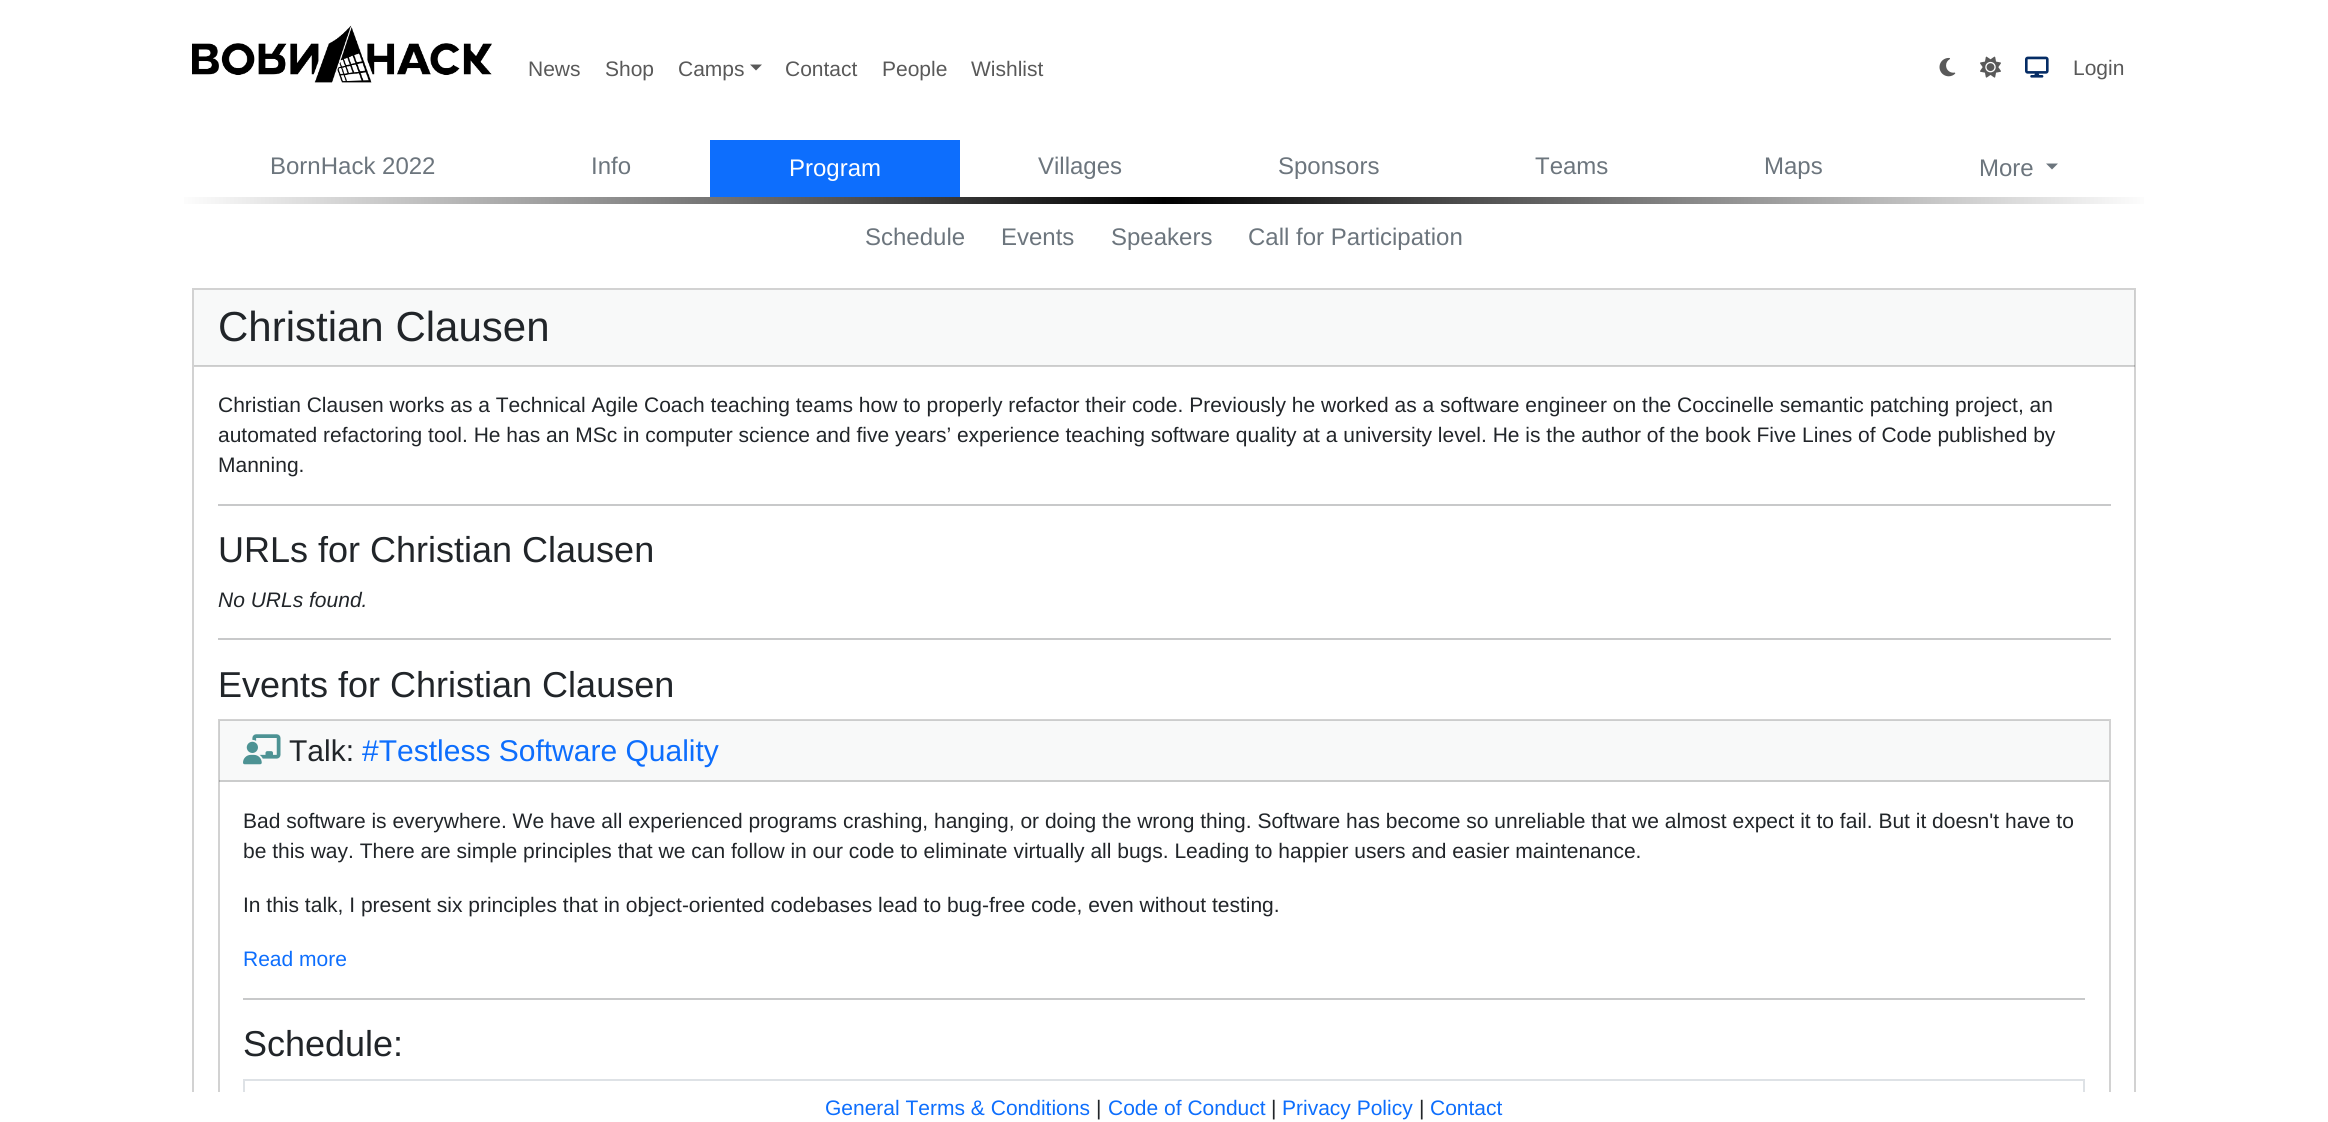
import math
import cairo

surface = cairo.ImageSurface(cairo.FORMAT_RGB24, 2328, 1122)
c = cairo.Context(surface)
options = cairo.FontOptions()
options.set_hint_metrics(cairo.HINT_METRICS_OFF)
options.set_hint_style(cairo.HINT_STYLE_NONE)
c.set_font_options(options)
c.set_miter_limit(4)
def C(code):
 c.set_source_rgb(*(v / 255 for v in bytes.fromhex(code[-6:])))
def F(family, size, italic, bold):
 c.select_font_face(family, cairo.FONT_SLANT_ITALIC if italic else cairo.FONT_SLANT_NORMAL, cairo.FONT_WEIGHT_BOLD if bold else cairo.FONT_WEIGHT_NORMAL)
 c.set_font_size(size)
def T(x, y, s):
 c.move_to(x, y)
 c.show_text(s)
def R(x, y, w, h):
 c.rectangle(x, y, w, h)
 c.fill()
def I(path, x, y, w, h):
 c.save()
 c.set_source_surface(cairo.ImageSurface.create_from_png(path), x, y)
 c.rectangle(x, y, w, h)
 c.fill()
 c.restore()
C('ffffff')
c.paint()
I('1.png',192,25,300,58)
F('Liberation Sans',21,0,0)
C('595959')
T(528,76,'News')
T(605,76,'Shop')
T(678,76,'Camps')
c.new_path()
c.move_to(750,64.5)
c.line_to(762,64.5)
c.line_to(756,70.5)
c.close_path()
c.fill()
T(785,76,'Contact')
T(882,76,'People')
T(971,76,'Wishlist')
I('2.png',1939,57,17,20)
I('3.png',1980,56,21,22)
I('4.png',2025,56,24,22)
T(2073,75,'Login')
F('Liberation Sans',24,0,0)
C('6c757d')
T(270,174,'BornHack 2022')
T(591,174,'Info')
C('0d6efd')
R(710,140,250,57)
C('ffffff')
T(789,176,'Program')
C('6c757d')
T(1038,174,'Villages')
T(1278,174,'Sponsors')
T(1535,174,'Teams')
T(1764,174,'Maps')
T(1979,176,'More')
c.new_path()
c.move_to(2046,163.5)
c.line_to(2058,163.5)
c.line_to(2052,169.5)
c.close_path()
c.fill()
gradient = cairo.LinearGradient(174,200,2154,200)
gradient.add_color_stop_rgba(0,1,1,1,1)
gradient.add_color_stop_rgba(.5,0,0,0,1)
gradient.add_color_stop_rgba(1,1,1,1,1)
c.set_source(gradient)
R(184,197,1960,7)
C('6c757d')
T(865,245,'Schedule')
T(1001,245,'Events')
T(1111,245,'Speakers')
T(1248,245,'Call for Participation')
c.rectangle(193,289,1942,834)
C('d2d2d2')
c.stroke()
c.set_source_rgba(0.129,0.145,0.161,0.03)
R(194,290,1941,76)
c.set_source_rgba(0,0,0,0.18)
R(194,365,1941,2)
F('Liberation Sans',42,0,0)
C('212529')
T(218,341,'Christian Clausen')
F('Liberation Sans',21,0,0)
T(218,412,'Christian Clausen works as a Technical Agile Coach teaching teams how to properly refactor their code. Previously he worked as a software engineer on the Coccinelle semantic patching project, an')
T(218,442,'automated refactoring tool. He has an MSc in computer science and five years’ experience teaching software quality at a university level. He is the author of the book Five Lines of Code published by')
T(218,472,'Manning.')
C('c8c9ca')
R(218,504,1893,2)
F('Liberation Sans',36,0,0)
C('212529')
T(218,562,'URLs for Christian Clausen')
F('Liberation Sans',21,1,0)
T(218,607,'No URLs found.')
C('c8c9ca')
R(218,638,1893,2)
F('Liberation Sans',36,0,0)
C('212529')
T(218,697,'Events for Christian Clausen')
c.rectangle(219,720,1891,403)
C('d2d2d2')
c.stroke()
c.set_source_rgba(0.129,0.145,0.161,0.03)
R(219,720,1890,62)
c.set_source_rgba(0,0,0,0.18)
R(219,780,1890,2)
I('5.png',243,734,38,31)
F('Liberation Sans',30,0,0)
C('212529')
T(289,761,'Talk:')
C('0d6efd')
T(362,761,'#Testless Software Quality')
F('Liberation Sans',21,0,0)
C('212529')
T(243,828,'Bad software is everywhere. We have all experienced programs crashing, hanging, or doing the wrong thing. Software has become so unreliable that we almost expect it to fail. But it doesn\'t have to')
T(243,858,'be this way. There are simple principles that we can follow in our code to eliminate virtually all bugs. Leading to happier users and easier maintenance.')
T(243,912,'In this talk, I present six principles that in object-oriented codebases lead to bug-free code, even without testing.')
C('0d6efd')
T(243,966,'Read more')
C('c8c9ca')
R(243,998,1842,2)
F('Liberation Sans',36,0,0)
C('212529')
T(243,1056,'Schedule:')
c.rectangle(244,1080,1840,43)
C('dee2e6')
c.stroke()
C('ffffff')
R(192,1092,1944,30)
F('Liberation Sans',21,0,0)
C('0d6efd')
T(825,1115,'General Terms & Conditions')
C('212529')
T(1096,1115,'|')
C('0d6efd')
T(1108,1115,'Code of Conduct')
C('212529')
T(1271,1115,'|')
C('0d6efd')
T(1282,1115,'Privacy Policy')
C('212529')
T(1419,1115,'|')
C('0d6efd')
T(1430,1115,'Contact')
surface.write_to_png('o.png')
